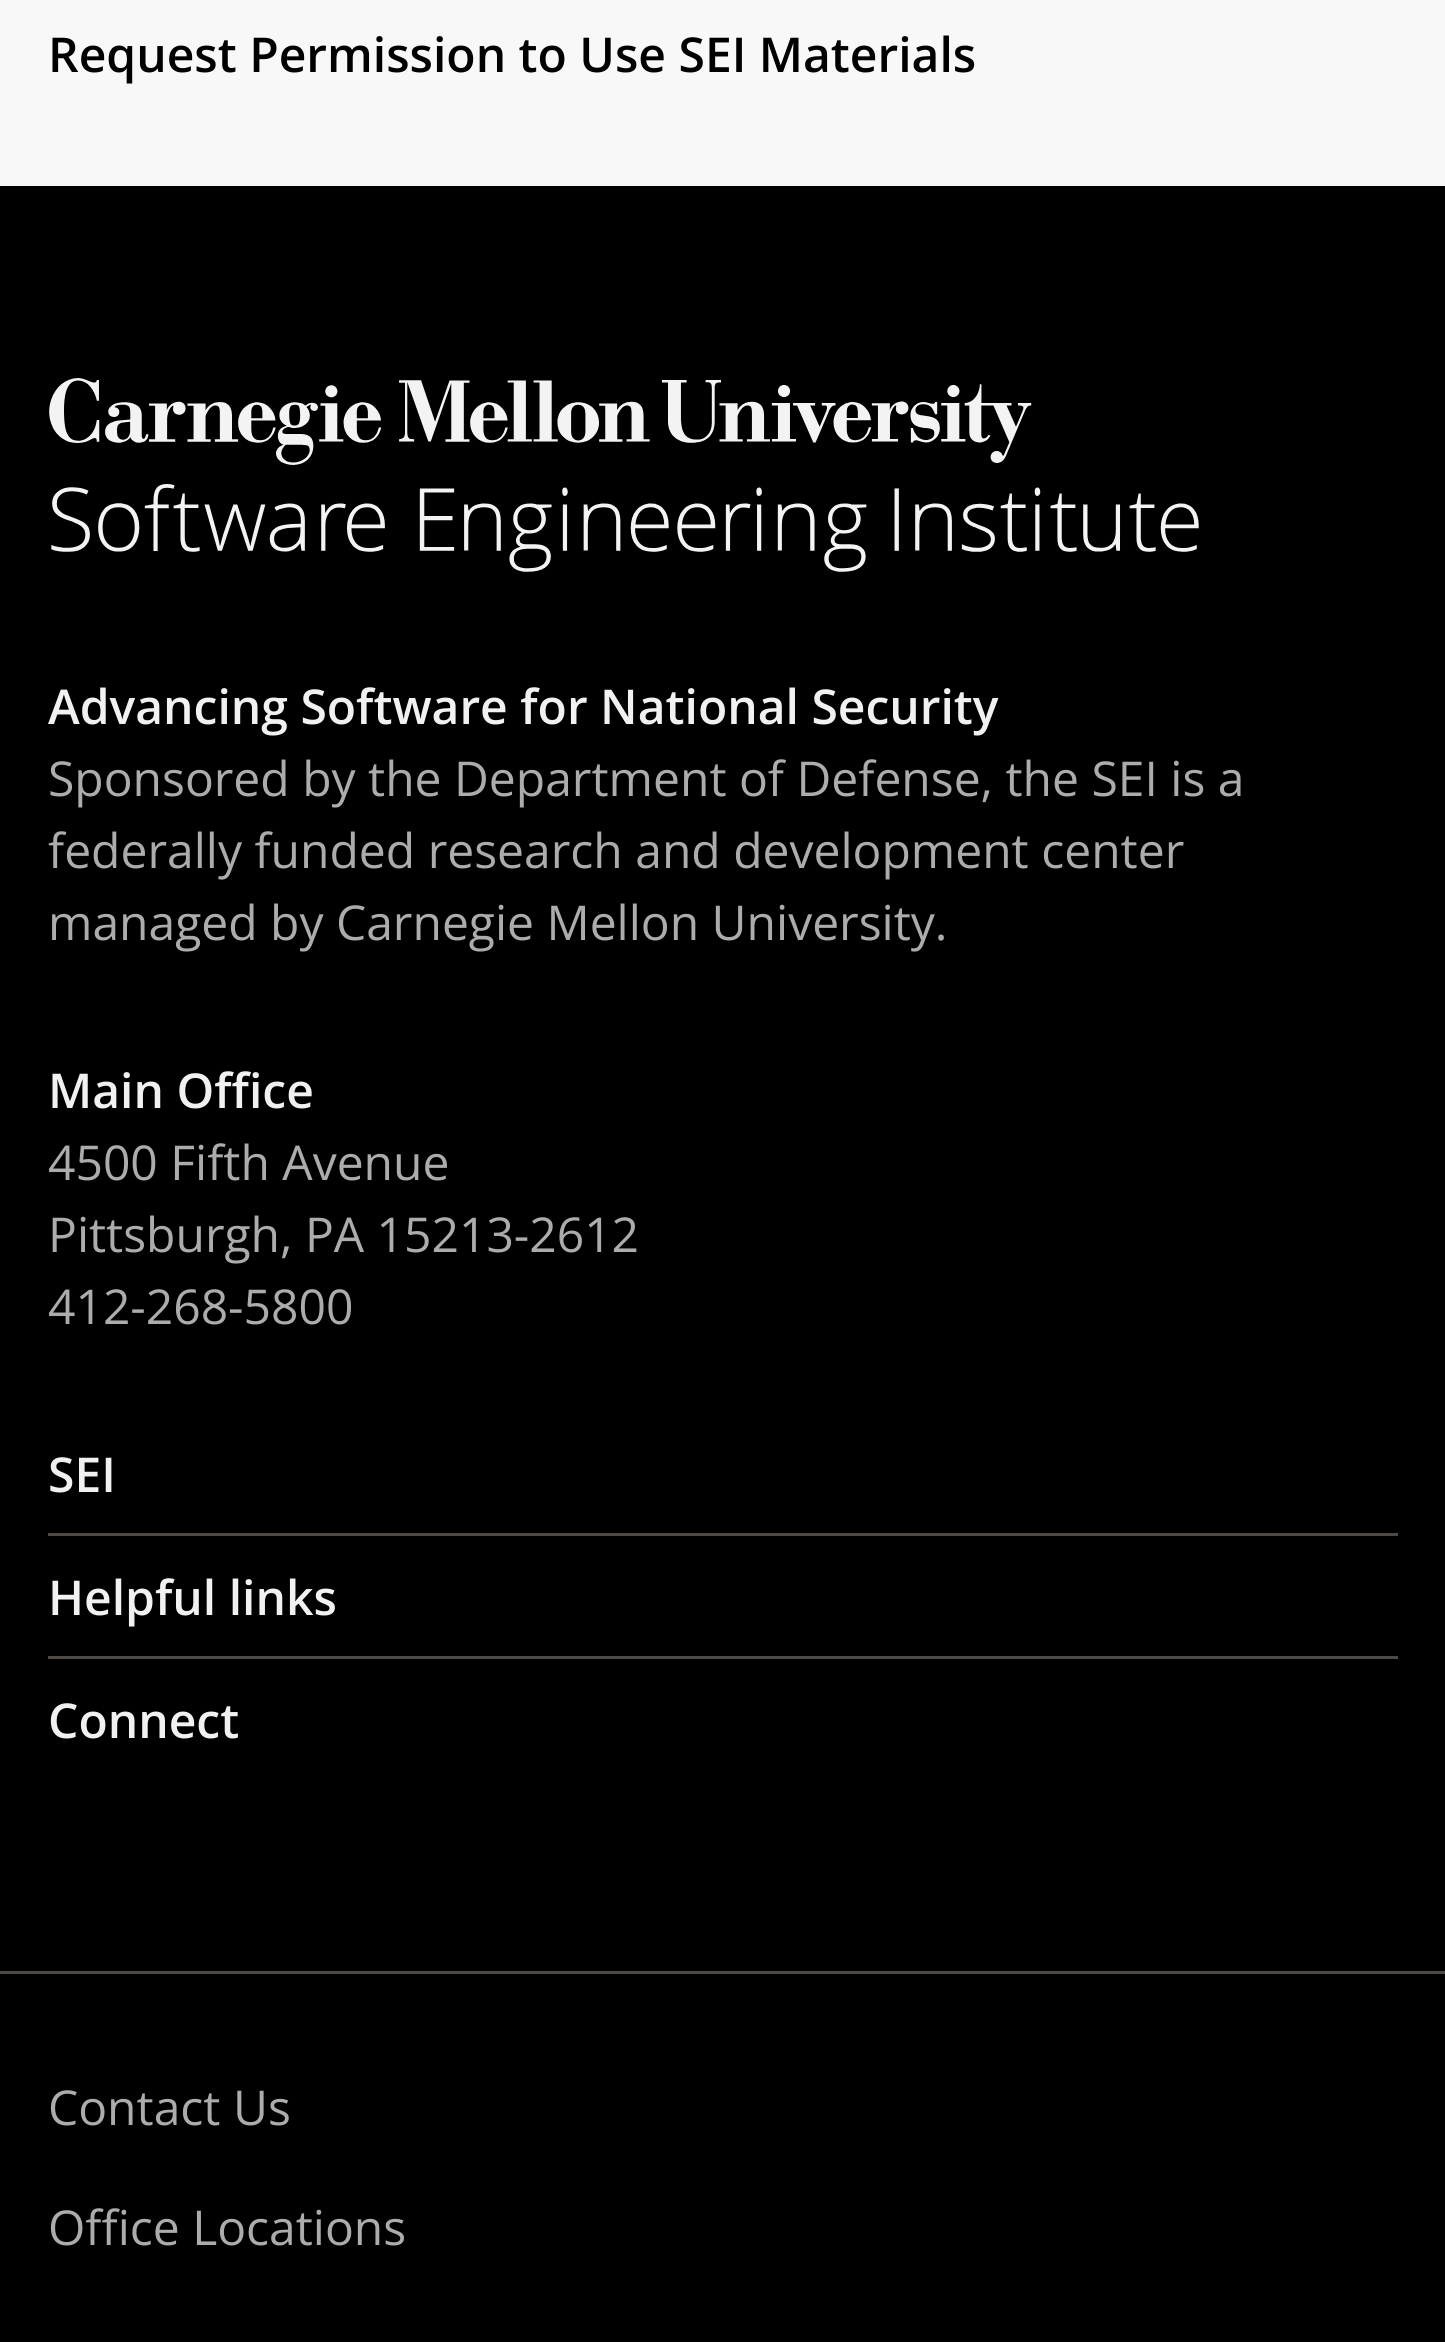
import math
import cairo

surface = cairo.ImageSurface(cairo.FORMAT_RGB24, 1445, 2342)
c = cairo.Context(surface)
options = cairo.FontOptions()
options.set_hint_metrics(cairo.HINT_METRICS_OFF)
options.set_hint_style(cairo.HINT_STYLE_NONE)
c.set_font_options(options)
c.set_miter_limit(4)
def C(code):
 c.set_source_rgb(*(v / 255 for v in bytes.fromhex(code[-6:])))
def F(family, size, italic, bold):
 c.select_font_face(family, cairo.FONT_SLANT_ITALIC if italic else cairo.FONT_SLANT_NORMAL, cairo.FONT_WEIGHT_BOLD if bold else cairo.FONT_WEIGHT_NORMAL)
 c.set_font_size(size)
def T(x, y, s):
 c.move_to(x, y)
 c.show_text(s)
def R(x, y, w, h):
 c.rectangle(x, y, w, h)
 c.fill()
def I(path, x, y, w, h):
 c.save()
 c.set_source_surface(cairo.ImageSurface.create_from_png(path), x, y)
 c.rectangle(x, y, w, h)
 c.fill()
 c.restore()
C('f9f8f8')
c.paint()
F('Open Sans SemiBold',48,0,0)
C('000000')
T(48,72,'Request Permission to Use SEI Materials')
R(0,186,1445,1785)
I('1.png',49,378,1150,194)
C('f2f1f1')
T(48,724,'Advancing Software for National Security')
F('Open Sans',48,0,0)
C('adacac')
T(48,796,'Sponsored by the Department of Defense, the SEI is a')
T(48,868,'federally funded research and development center')
T(48,940,'managed by Carnegie Mellon University.')
F('Open Sans SemiBold',48,0,0)
C('f2f1f1')
T(48,1108,'Main Office')
F('Open Sans',48,0,0)
C('adacac')
T(48,1180,'4500 Fifth Avenue')
T(48,1252,'Pittsburgh, PA 15213-2612')
T(48,1324,'412-268-5800')
C('4c4946')
R(48,1533,1350,3)
F('Open Sans SemiBold',48,0,0)
C('f2f1f1')
T(48,1492,'SEI')
C('4c4946')
R(48,1656,1350,3)
C('f2f1f1')
T(48,1615,'Helpful links')
T(48,1738,'Connect')
C('000000')
R(0,1974,1445,368)
C('4c4946')
R(0,1971,1445,3)
F('Open Sans',48,0,0)
C('adacac')
T(48,2125,'Contact Us')
T(48,2245,'Office Locations')
surface.write_to_png('o.png')
